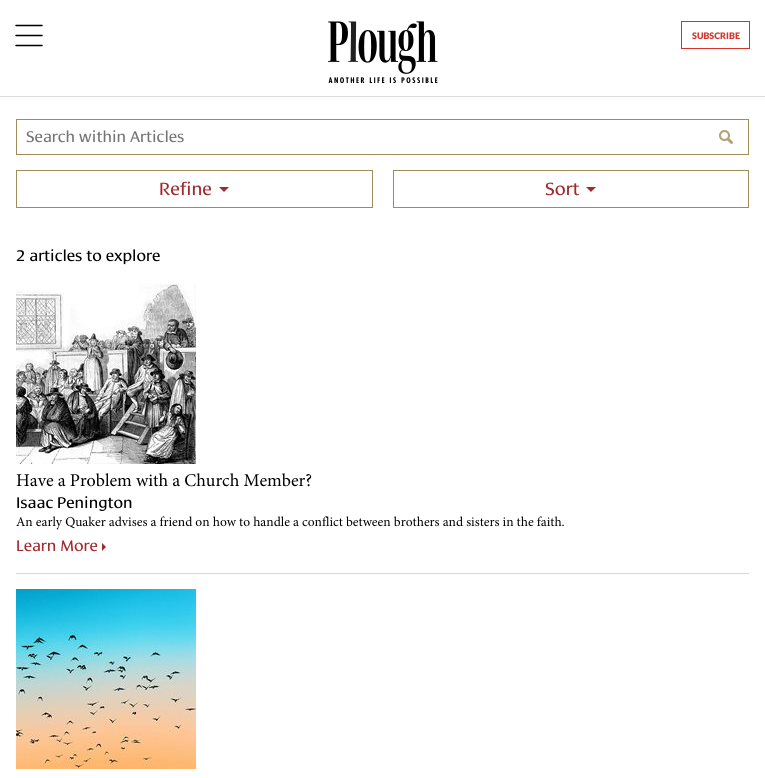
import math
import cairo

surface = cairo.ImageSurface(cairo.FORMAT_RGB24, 765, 778)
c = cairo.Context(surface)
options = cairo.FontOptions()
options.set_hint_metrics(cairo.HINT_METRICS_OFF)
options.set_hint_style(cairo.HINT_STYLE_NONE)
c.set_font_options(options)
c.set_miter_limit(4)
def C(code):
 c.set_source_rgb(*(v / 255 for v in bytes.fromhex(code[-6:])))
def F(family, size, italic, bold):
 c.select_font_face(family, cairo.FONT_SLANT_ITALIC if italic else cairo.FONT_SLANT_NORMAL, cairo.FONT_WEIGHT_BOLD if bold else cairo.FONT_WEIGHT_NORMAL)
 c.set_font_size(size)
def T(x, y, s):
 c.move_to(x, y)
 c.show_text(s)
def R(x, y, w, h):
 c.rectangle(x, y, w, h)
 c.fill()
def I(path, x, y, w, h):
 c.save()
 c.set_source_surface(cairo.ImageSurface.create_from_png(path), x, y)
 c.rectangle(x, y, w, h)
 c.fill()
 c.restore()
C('ffffff')
c.paint()
C('dddddd')
R(0,96,765,1)
c.new_path()
c.move_to(16,45.5)
c.line_to(42,45.5)
c.move_to(16,35.5)
c.line_to(42,35.5)
c.move_to(16,25.5)
c.line_to(42,25.5)
C('000000')
c.set_line_width(1.5)
c.set_line_cap(cairo.LINE_CAP_ROUND)
c.set_line_join(cairo.LINE_JOIN_ROUND)
c.stroke()
I('1.png',328,21,110,62)
c.rectangle(681.5,21.5,68,27)
C('d5332a')
c.set_line_width(1)
c.set_line_cap(cairo.LINE_CAP_BUTT)
c.set_line_join(cairo.LINE_JOIN_MITER)
c.stroke()
F('Lato Black',9,0,0)
T(692,39,'SUBSCRIBE')
c.rectangle(16.5,119.5,732,35)
C('a08c59')
c.stroke()
F('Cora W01',15.75,0,0)
C('757575')
T(26,142,'Search within Articles')
I('2.png',719,130,14,14)
c.rectangle(16.5,170.5,356,37)
C('a08c59')
c.stroke()
F('Cora W01',18,0,0)
C('a02b2f')
T(159,195,'Refine')
c.new_path()
c.move_to(219,187)
c.line_to(229,187)
c.line_to(224,192)
c.close_path()
c.fill()
c.rectangle(393.5,170.5,355,37)
C('a08c59')
c.stroke()
C('a02b2f')
T(545,195,'Sort')
c.new_path()
c.move_to(586,187)
c.line_to(596,187)
c.line_to(591,192)
c.close_path()
c.fill()
F('Cora W01',15.75,0,0)
C('000000')
T(16,261,'2 articles to explore')
I('3.png',16,284,180,180)
F('Minion',18,0,0)
T(16,486,'Have a Problem with a Church Member?')
F('Cora W01',15.75,0,0)
T(16,508,'Isaac Penington')
F('Minion',13.5,0,0)
T(16,526,'An early Quaker advises a friend on how to handle a conflict between brothers and sisters in the faith.')
F('Cora W01',15.75,0,0)
C('a02b2f')
T(16,551,'Learn More')
c.new_path()
c.move_to(102,551)
c.line_to(102,543)
c.line_to(106,547)
c.close_path()
c.fill()
C('ded7c5')
R(16,573,733,1)
I('4.png',16,589,180,180)
surface.write_to_png('o.png')
